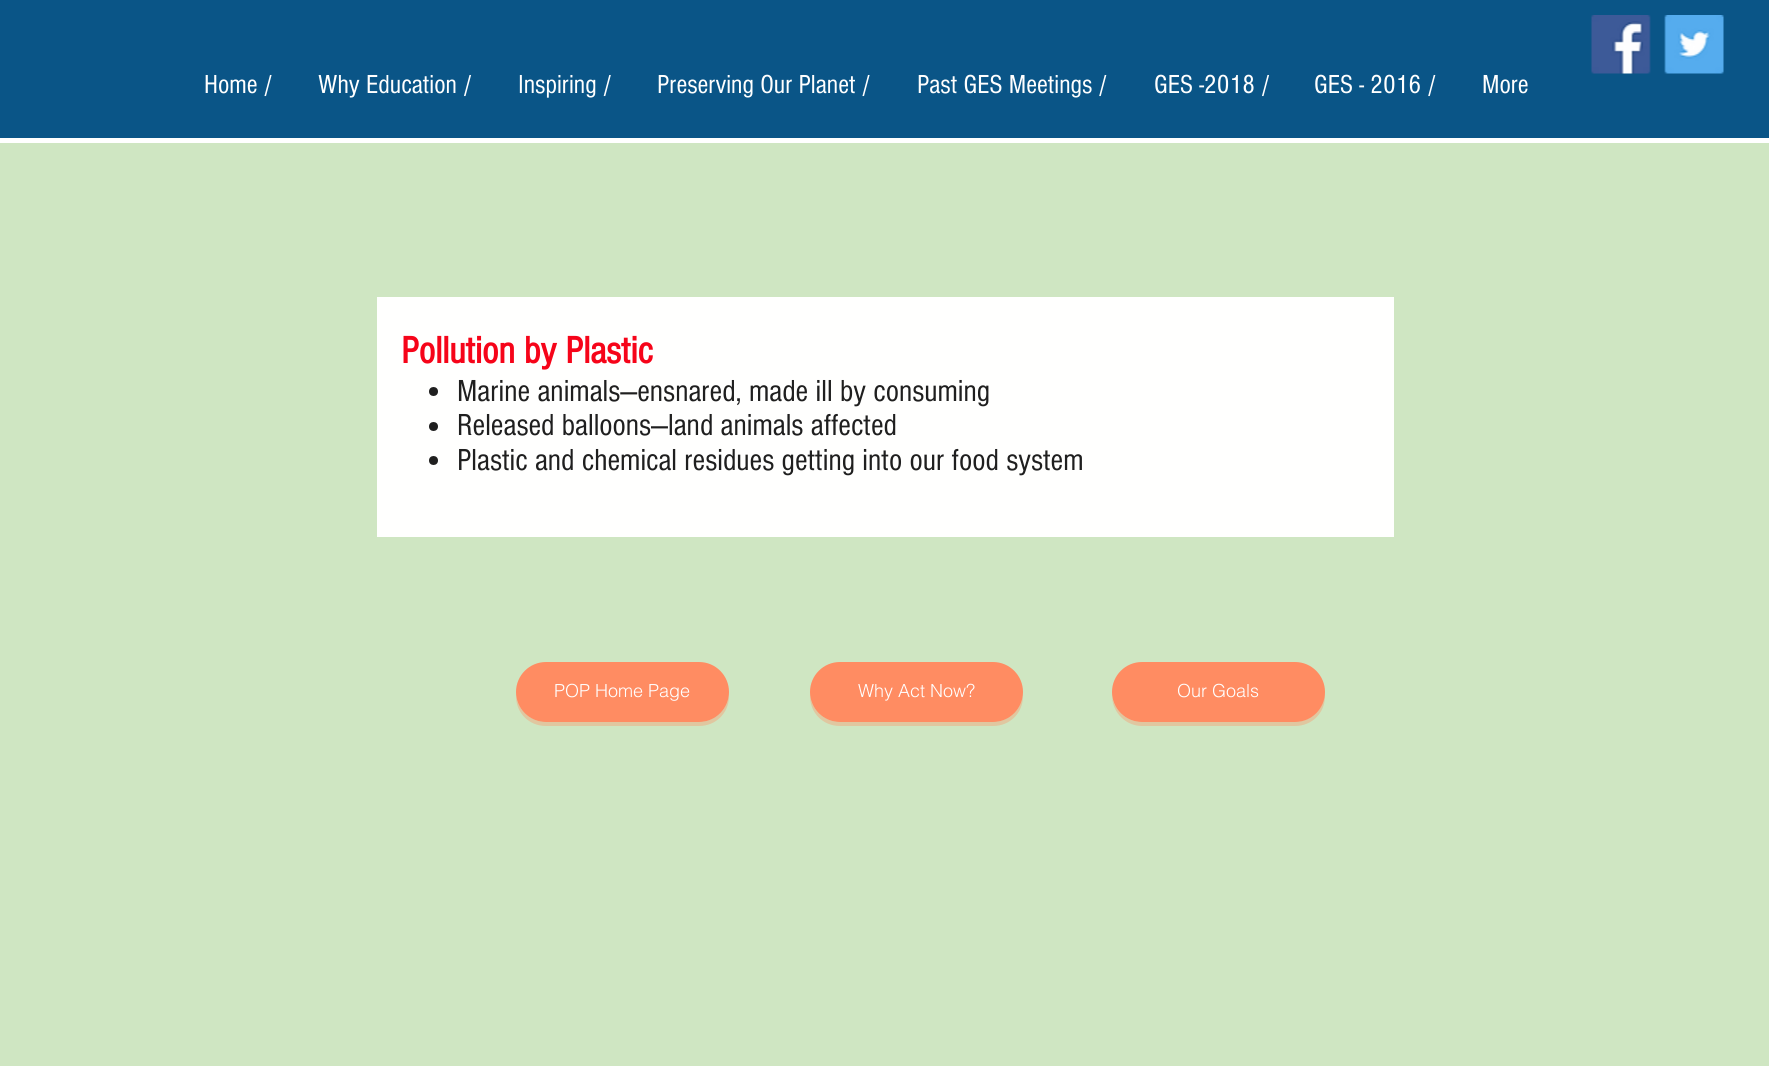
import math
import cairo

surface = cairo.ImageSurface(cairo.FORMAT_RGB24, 1769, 1066)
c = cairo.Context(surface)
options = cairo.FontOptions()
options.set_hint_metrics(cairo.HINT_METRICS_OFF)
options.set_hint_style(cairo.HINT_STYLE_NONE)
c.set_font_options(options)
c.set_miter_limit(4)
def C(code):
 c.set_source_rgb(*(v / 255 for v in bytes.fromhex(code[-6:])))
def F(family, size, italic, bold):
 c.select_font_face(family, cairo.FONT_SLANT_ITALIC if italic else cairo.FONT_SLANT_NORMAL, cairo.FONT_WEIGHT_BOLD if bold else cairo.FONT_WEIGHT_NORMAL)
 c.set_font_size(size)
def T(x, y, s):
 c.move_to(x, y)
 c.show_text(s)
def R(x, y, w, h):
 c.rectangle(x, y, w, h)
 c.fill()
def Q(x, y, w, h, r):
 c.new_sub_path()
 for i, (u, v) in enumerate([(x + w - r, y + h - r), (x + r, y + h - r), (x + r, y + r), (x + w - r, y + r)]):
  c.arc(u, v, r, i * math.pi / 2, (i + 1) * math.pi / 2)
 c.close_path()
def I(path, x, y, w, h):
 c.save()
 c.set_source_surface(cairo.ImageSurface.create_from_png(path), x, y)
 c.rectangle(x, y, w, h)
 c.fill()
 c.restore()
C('cfe6c2')
c.paint()
C('0a5587')
R(0,0,1769,138)
C('ffffff')
R(0,138,1769,5)
I('1.png',1591,15,60,59)
I('2.png',1664,15,60,59)
F('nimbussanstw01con',27,0,0)
T(204,93,'Home /')
T(318,93,'Why Education /')
T(518,93,'Inspiring /')
T(657,93,'Preserving Our Planet /')
T(917,93,'Past GES Meetings /')
T(1154,93,'GES -2018 /')
T(1314,93,'GES - 2016 /')
T(1482,93,'More')
C('fffffe')
R(377,297,1017,240)
F('nimbussanstw01con',39,0,1)
C('f60419')
T(401,363,'Pollution by Plastic')
C('1f1f1f')
c.new_path()
c.arc(433.5,391.5,4.5,0,2 * math.pi)
c.fill()
F('nimbussanstw01con',31.5,0,0)
T(457,401,'Marine animals—ensnared, made ill by consuming')
c.new_path()
c.arc(433.5,426.5,4.5,0,2 * math.pi)
c.fill()
T(457,435,'Released balloons—land animals affected')
c.new_path()
c.arc(433.5,460.5,4.5,0,2 * math.pi)
c.fill()
T(457,470,'Plastic and chemical residues getting into our food system')
C('e0c7a0')
c.new_path()
c.move_to(516,694)
c.line_to(516,696)
c.curve_to(516,713,529,726,546,726)
c.line_to(699,726)
c.curve_to(716,726,729,713,729,696)
c.line_to(729,694)
c.curve_to(728,709,715,722,699,722)
c.line_to(546,722)
c.curve_to(530,722,517,709,516,694)
c.close_path()
c.fill()
C('ff8c62')
Q(516,662,213,60,30)
c.fill()
F('helvetica Light',18,0,0)
C('ffffff')
T(554,697,'POP Home Page')
C('e0c7a0')
c.new_path()
c.move_to(810,694)
c.line_to(810,696)
c.curve_to(810,713,823,726,840,726)
c.line_to(993,726)
c.curve_to(1010,726,1023,713,1023,696)
c.line_to(1023,694)
c.curve_to(1022,709,1009,722,993,722)
c.line_to(840,722)
c.curve_to(824,722,811,709,810,694)
c.close_path()
c.fill()
C('ff8c62')
Q(810,662,213,60,30)
c.fill()
C('ffffff')
T(858,697,'Why Act Now?')
C('e0c7a0')
c.new_path()
c.move_to(1112,697)
c.curve_to(1113,713,1126,726,1142,726)
c.line_to(1295,726)
c.curve_to(1312,726,1325,713,1325,696)
c.line_to(1324,690)
c.line_to(1324,692)
c.curve_to(1324,708,1311,722,1294,722)
c.line_to(1142,722)
c.curve_to(1127,722,1115,711,1112,697)
c.close_path()
c.fill()
C('ff8c62')
Q(1112,662,213,60,30)
c.fill()
C('ffffff')
T(1177,697,'Our Goals')
surface.write_to_png('o.png')
